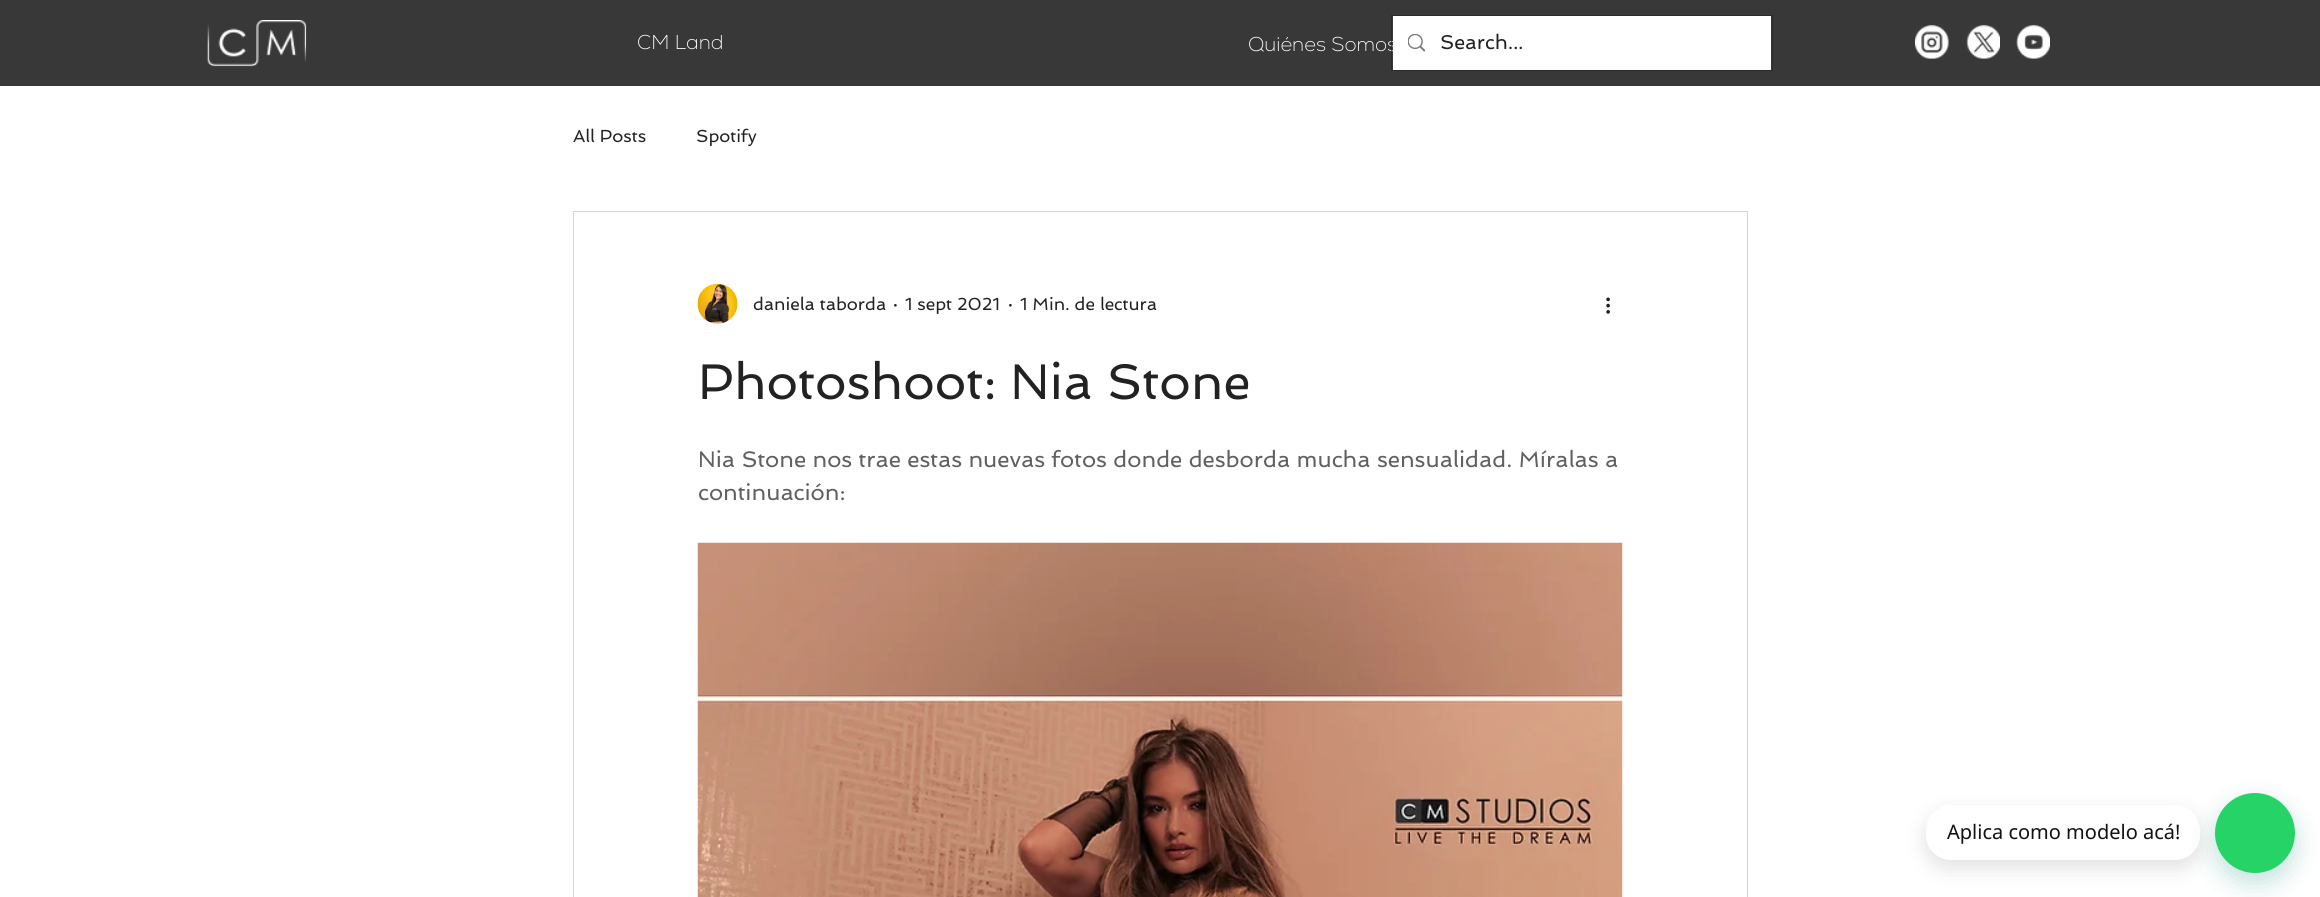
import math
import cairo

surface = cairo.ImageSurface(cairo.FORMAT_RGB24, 2320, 897)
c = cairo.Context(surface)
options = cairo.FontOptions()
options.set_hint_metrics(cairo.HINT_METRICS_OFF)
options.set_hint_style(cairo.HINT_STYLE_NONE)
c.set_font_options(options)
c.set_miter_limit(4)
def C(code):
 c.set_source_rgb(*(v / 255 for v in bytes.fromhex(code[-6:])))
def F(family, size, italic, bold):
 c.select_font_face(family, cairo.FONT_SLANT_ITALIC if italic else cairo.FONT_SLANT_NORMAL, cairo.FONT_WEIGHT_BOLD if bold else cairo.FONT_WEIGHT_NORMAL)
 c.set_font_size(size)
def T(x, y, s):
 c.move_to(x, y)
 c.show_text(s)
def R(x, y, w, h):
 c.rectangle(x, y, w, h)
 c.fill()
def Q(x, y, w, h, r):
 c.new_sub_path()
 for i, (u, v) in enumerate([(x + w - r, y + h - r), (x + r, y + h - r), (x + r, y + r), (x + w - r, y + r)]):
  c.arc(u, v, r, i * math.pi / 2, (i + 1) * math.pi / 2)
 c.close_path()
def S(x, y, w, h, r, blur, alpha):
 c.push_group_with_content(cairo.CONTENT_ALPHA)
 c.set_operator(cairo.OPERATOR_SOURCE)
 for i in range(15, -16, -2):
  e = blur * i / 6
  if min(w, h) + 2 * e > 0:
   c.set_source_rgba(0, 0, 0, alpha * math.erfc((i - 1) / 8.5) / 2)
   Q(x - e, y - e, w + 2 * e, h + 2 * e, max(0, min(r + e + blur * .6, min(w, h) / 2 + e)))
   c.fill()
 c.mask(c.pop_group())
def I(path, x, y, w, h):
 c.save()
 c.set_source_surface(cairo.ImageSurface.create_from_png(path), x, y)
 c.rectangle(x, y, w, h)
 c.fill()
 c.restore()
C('ffffff')
c.paint()
C('383838')
R(0,0,2320,86)
I('1.png',207,20,100,47)
F('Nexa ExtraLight',20,0,0)
C('ffffff')
T(637,49,'CM Land')
T(1248,51,'Quiénes Somos')
c.rectangle(1391.5,15.5,381,55)
c.set_source_rgba(0.133,0.133,0.133,0.6)
c.set_line_width(1)
c.stroke()
C('ffffff')
R(1393,16,378,54)
I('2.png',1408,34,17,18)
F('Spinnaker',20,0,0)
C('222222')
T(1440,49,'Search...')
I('3.png',1915,25,34,34)
I('4.png',1966,25,34,34)
I('5.png',2016,25,34,34)
F('Spinnaker',17.5,0,0)
T(573,142,'All Posts')
T(696,142,'Spotify')
c.rectangle(573.5,211.5,1174,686)
C('d6d6d6')
c.stroke()
I('6.png',697,283,41,41)
C('222222')
T(753,310,'daniela taborda')
T(893,310,'·')
T(905,310,'1 sept 2021')
T(1008,310,'·')
T(1020,310,'1 Min. de lectura')
I('7.png',1606,297,4,17)
F('Spinnaker',50,0,0)
T(698,399,'Photoshoot: Nia Stone')
F('Spinnaker',22.5,0,0)
C('606060')
T(698,467,'Nia Stone nos trae estas nuevas fotos donde desborda mucha sensualidad. Míralas a')
T(698,500,'continuación:')
I('8.png',697,542,926,355)
C('000000')
S(1926,813,274,55,25,11,.12)
C('ffffff')
Q(1926,805,274,55,25)
c.fill()
F('Noto Sans',20,0,0)
C('111111')
T(1947,839,'Aplica como modelo acá!')
C('128c7e')
S(2215,803,80,80,40,12.5,.25)
C('25d366')
c.arc(2255,833,40,0,2 * math.pi)
c.fill()
surface.write_to_png('o.png')
